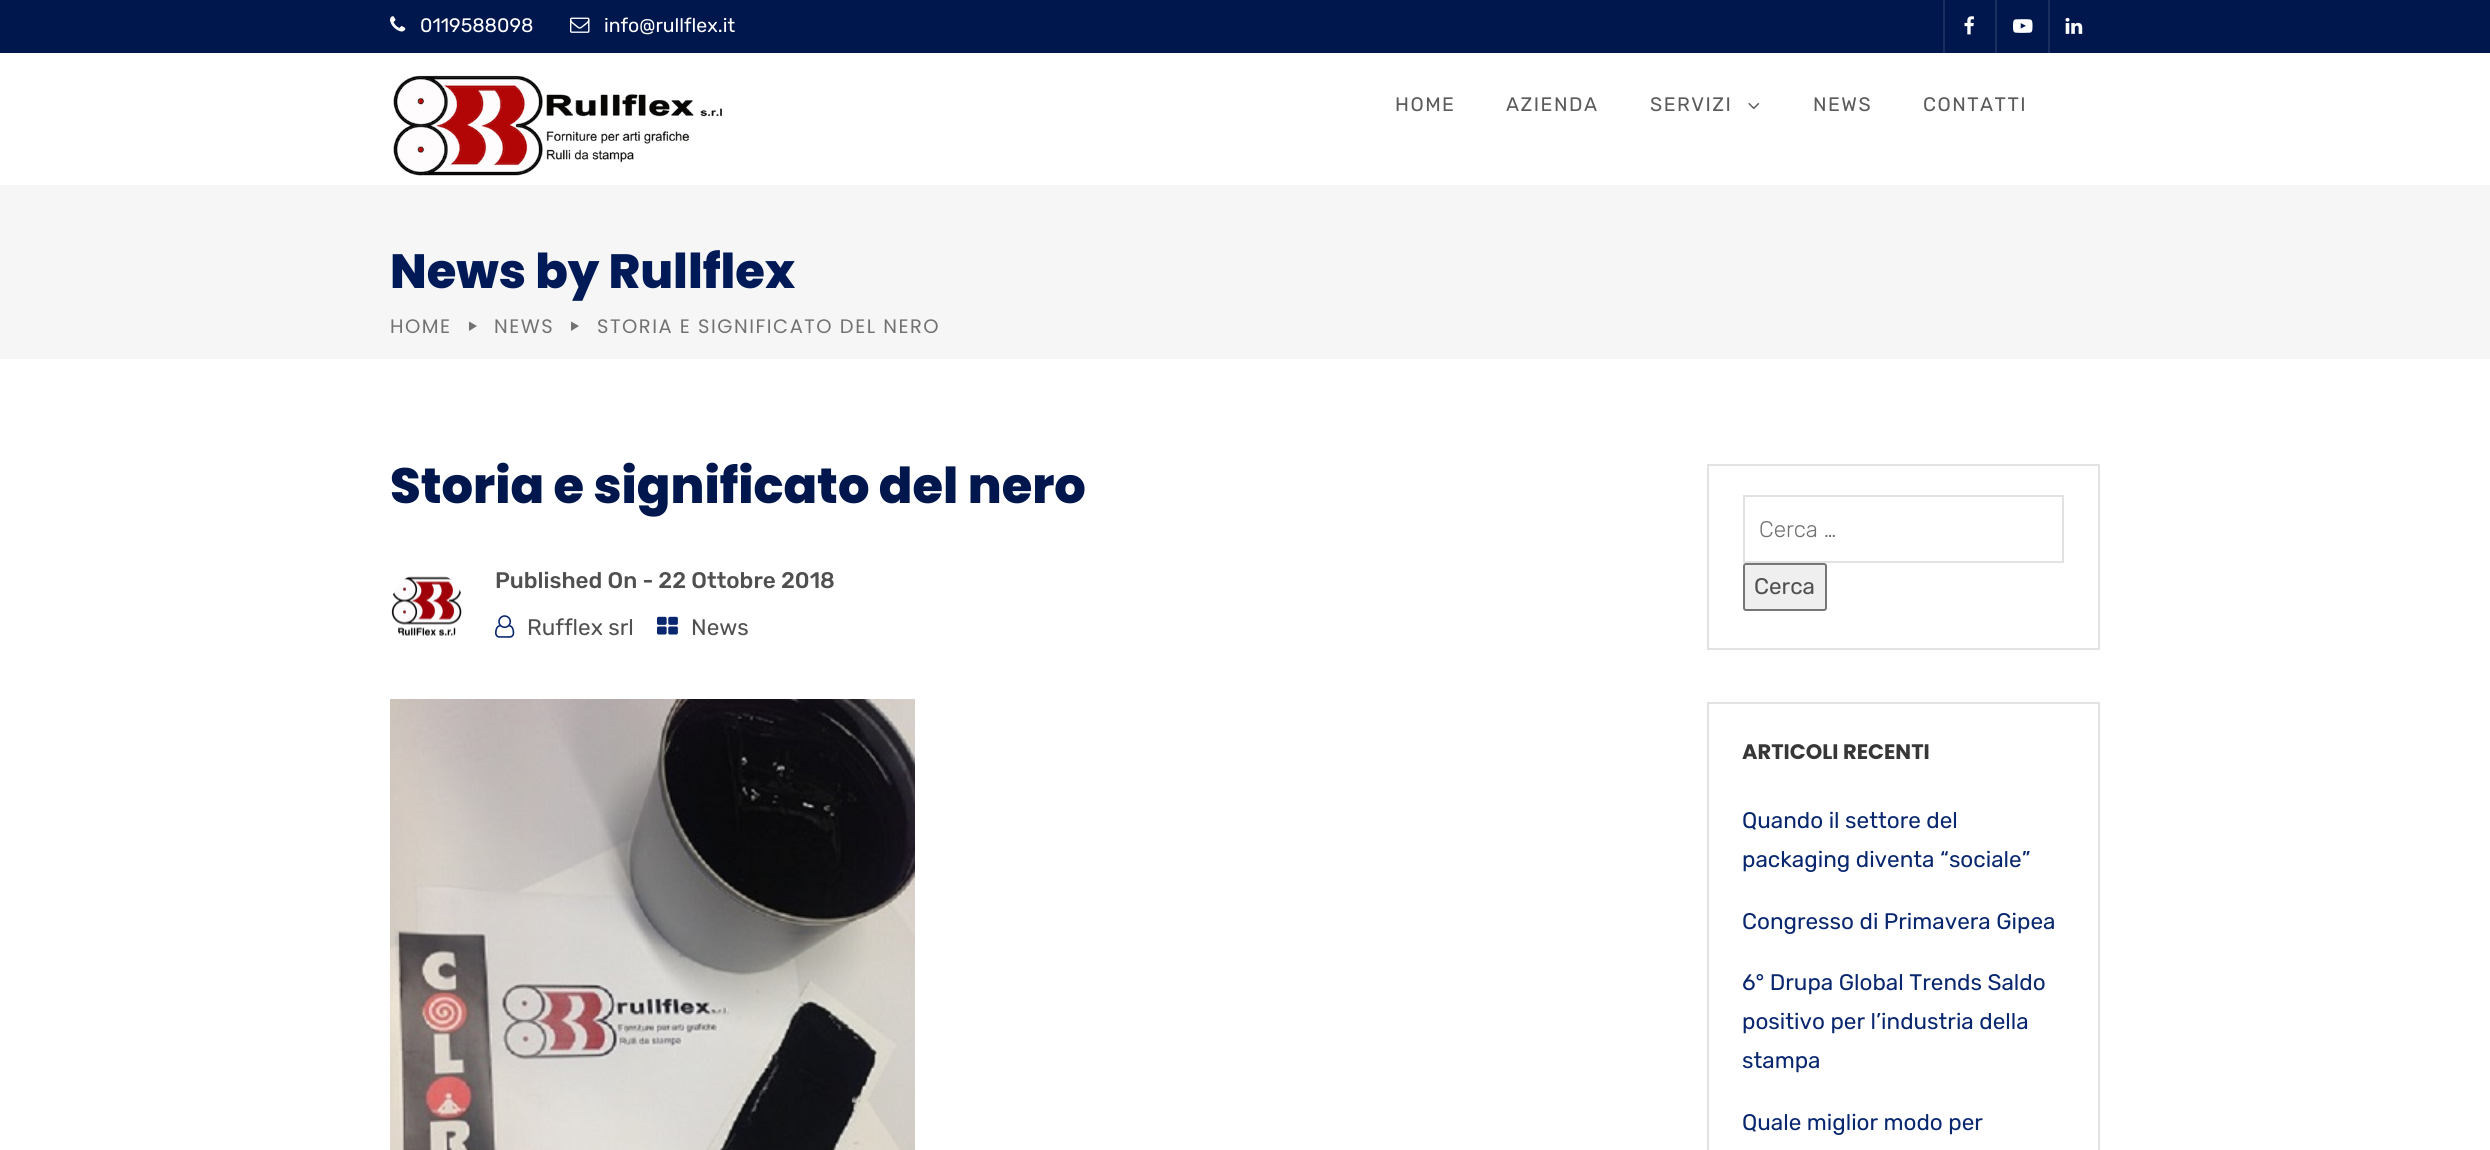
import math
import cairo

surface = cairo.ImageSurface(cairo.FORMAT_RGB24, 2490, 1150)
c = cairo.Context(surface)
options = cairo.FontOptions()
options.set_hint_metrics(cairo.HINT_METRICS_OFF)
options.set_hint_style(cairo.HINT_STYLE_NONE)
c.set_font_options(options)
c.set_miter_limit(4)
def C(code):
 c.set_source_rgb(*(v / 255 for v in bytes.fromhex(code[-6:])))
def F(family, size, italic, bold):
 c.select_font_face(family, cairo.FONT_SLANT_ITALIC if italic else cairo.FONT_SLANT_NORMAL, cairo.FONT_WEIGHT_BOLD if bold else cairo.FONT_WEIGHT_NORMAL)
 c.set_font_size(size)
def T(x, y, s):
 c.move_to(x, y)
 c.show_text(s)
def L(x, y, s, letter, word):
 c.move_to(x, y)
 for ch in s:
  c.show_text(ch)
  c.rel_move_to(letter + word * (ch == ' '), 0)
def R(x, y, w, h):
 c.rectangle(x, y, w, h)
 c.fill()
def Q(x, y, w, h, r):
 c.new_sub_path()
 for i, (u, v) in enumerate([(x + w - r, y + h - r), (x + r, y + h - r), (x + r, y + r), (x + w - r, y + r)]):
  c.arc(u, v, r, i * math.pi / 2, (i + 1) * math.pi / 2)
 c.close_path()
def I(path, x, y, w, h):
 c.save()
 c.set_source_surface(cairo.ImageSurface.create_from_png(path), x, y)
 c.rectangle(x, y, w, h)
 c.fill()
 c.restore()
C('ffffff')
c.paint()
C('00174d')
R(0,0,2490,53)
I('1.png',390,16,16,16)
F('Rubik',19.5,0,0)
C('ffffff')
T(420,32,'0119588098')
I('2.png',570,17,20,16)
T(604,32,'info@rullflex.it')
C('1a2e5f')
R(1943,0,2,53)
I('3.png',1964,16,10,19)
R(1995,0,2,53)
I('4.png',2013,19,20,14)
R(2048,0,2,53)
I('5.png',2065,17,18,17)
I('6.png',393,75,329,101)
C('5b5b5b')
L(1395,111,'HOME',1.5,0)
L(1506,111,'AZIENDA',1.5,0)
L(1650,111,'SERVIZI',1.5,0)
I('7.png',1748,102,12,8)
L(1813,111,'NEWS',1.5,0)
L(1923,111,'CONTATTI',1.5,0)
C('f6f6f6')
R(0,185,2490,174)
F('Poppins ExtraBold',48,0,0)
C('001a57')
T(390,288,'News by Rullflex')
F('Poppins',19.5,0,0)
C('727272')
L(390,333,'HOME',1.5,0)
c.new_path()
c.move_to(469,321.5)
c.line_to(477,326)
c.line_to(469,331)
c.close_path()
c.fill()
L(494,333,'NEWS',1.5,0)
c.new_path()
c.move_to(571,321.5)
c.line_to(579,326)
c.line_to(571,331)
c.close_path()
c.fill()
L(597,333,'STORIA E SIGNIFICATO DEL NERO',1.5,0)
F('Poppins ExtraBold',49.5,0,0)
C('00174d')
T(390,503,'Storia e significato del nero')
I('8.png',391,576,71,60)
F('Rubik Medium',22.5,0,0)
C('505050')
T(495,588,'Published On - 22 Ottobre 2018')
I('9.png',495,615,20,23)
F('Rubik',22.5,0,0)
T(527,635,'Rufflex srl')
I('10.png',657,616,21,19)
T(691,635,'News')
I('11.png',390,699,525,451)
c.rectangle(1708,465,391,184)
C('e2e2e2')
c.stroke()
c.rectangle(1744,496,319,66)
c.stroke()
F('Rubik Light',22.5,0,0)
C('727272')
T(1759,537,'Cerca …')
C('efefef')
Q(1744,564,82,46,2)
c.fill_preserve()
C('767676')
c.stroke()
F('Rubik',22.5,0,0)
C('505050')
T(1754,594,'Cerca')
c.rectangle(1708,703,391,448)
C('e2e2e2')
c.stroke()
F('Poppins',21,0,1)
C('373737')
T(1742,759,'ARTICOLI RECENTI')
F('Rubik',22.5,0,0)
C('09276f')
T(1742,828,'Quando il settore del')
T(1742,867,'packaging diventa “sociale”')
T(1742,929,'Congresso di Primavera Gipea')
T(1742,990,'6° Drupa Global Trends Saldo')
T(1742,1029,'positivo per l’industria della')
T(1742,1068,'stampa')
T(1742,1130,'Quale miglior modo per')
surface.write_to_png('o.png')
